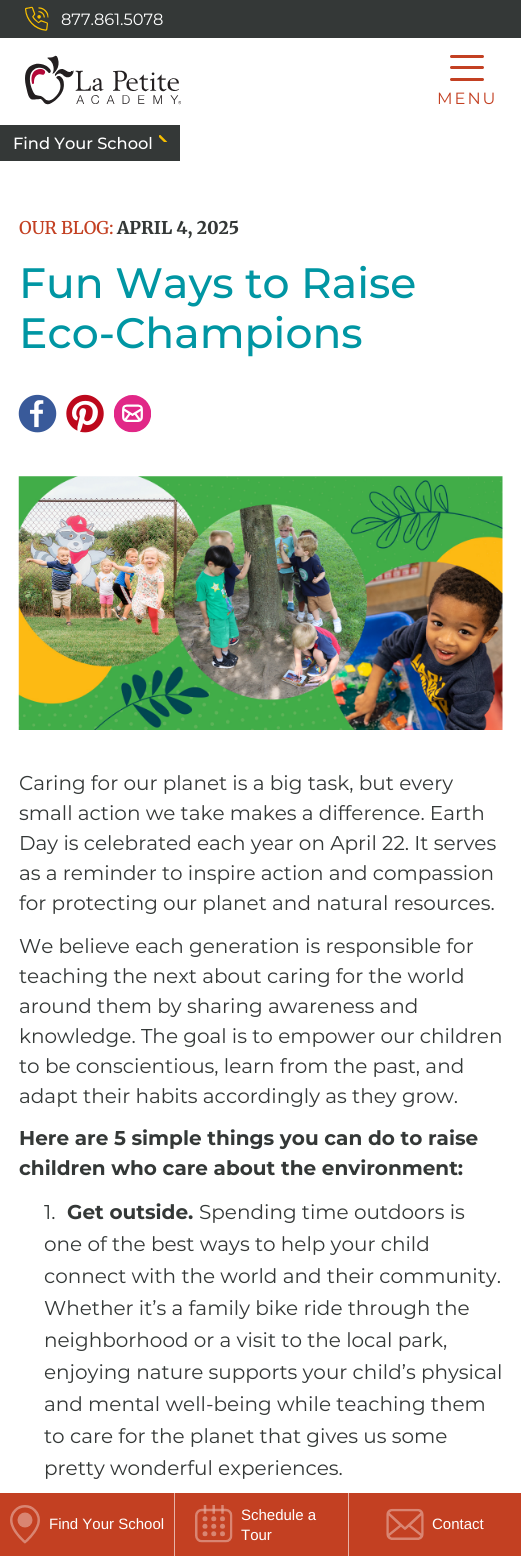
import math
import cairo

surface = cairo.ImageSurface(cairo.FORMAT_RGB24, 521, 1556)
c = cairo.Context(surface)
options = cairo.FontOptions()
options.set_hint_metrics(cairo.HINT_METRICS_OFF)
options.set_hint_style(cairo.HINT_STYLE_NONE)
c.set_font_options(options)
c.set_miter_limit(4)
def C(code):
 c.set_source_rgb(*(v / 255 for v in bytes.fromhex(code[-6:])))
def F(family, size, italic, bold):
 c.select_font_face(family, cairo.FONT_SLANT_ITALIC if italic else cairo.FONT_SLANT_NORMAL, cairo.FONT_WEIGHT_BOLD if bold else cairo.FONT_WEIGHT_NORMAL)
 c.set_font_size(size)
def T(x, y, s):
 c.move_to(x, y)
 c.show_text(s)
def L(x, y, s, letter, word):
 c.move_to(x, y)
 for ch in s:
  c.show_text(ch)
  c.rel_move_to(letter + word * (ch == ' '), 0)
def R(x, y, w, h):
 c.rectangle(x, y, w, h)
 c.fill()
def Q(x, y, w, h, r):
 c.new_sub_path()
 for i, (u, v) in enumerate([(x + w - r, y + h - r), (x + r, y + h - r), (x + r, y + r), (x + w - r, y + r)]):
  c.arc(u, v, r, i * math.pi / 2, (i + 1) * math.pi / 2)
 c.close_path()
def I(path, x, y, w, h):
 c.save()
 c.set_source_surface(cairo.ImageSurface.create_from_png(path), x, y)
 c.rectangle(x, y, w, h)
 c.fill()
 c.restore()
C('ffffff')
c.paint()
C('343837')
R(0,0,521,38)
I('1.png',25,6,24,25)
F('Montserrat',16.25,0,0)
C('ffffff')
T(61,25,'877.861.5078')
I('2.png',25,55,156,50)
C('c34022')
Q(450,66,34,3,1.5)
c.fill()
Q(450,55,34,3,1.5)
c.fill()
Q(450,78,34,3,1.5)
c.fill()
L(437,104,'MENU',2,0)
C('343837')
R(0,125,180,36)
F('Montserrat Medium',16.25,0,0)
C('ffffff')
T(13,149,'Find Your School')
I('3.png',159,135,9,7)
F('Merriweather Medium',17.5,0,0)
C('c34022')
T(19,234,'OUR BLOG:')
F('Merriweather ExtraBold',17.5,0,0)
C('343837')
T(117,234,'APRIL 4, 2025')
F('Montserrat Medium',42.5,0,0)
C('0096a3')
T(19,298,'Fun Ways to Raise')
T(19,348,'Eco-Champions')
I('4.png',18,394,39,39)
I('5.png',66,394,38,39)
I('6.png',114,395,37,38)
I('7.png',18,476,485,254)
F('Montserrat',20,0,0)
C('343837')
T(19,790,'Caring for our planet is a big task, but every')
T(19,820,'small action we take makes a difference. Earth')
T(19,850,'Day is celebrated each year on April 22. It serves')
T(19,880,'as a reminder to inspire action and compassion')
T(19,910,'for protecting our planet and natural resources.')
T(19,953,'We believe each generation is responsible for')
T(19,983,'teaching the next about caring for the world')
T(19,1013,'around them by sharing awareness and')
T(19,1043,'knowledge. The goal is to empower our children')
T(19,1073,'to be conscientious, learn from the past, and')
T(19,1103,'adapt their habits accordingly as they grow.')
F('Montserrat',20,0,1)
T(19,1145,'Here are 5 simple things you can do to raise')
T(19,1175,'children who care about the environment:')
F('Montserrat',20,0,0)
T(44,1219,'1.')
F('Montserrat',20,0,1)
T(67,1219,'Get outside.')
F('Montserrat',20,0,0)
T(199,1219,'Spending time outdoors is')
T(44,1251,'one of the best ways to help your child')
T(44,1283,'connect with the world and their community.')
T(44,1315,'Whether it’s a family bike ride through the')
T(44,1347,'neighborhood or a visit to the local park,')
T(44,1379,'enjoying nature supports your child’s physical')
T(44,1411,'and mental well-being while teaching them')
T(44,1443,'to care for the planet that gives us some')
T(44,1475,'pretty wonderful experiences.')
C('c34022')
R(0,1493,174,63)
I('8.png',10,1505,30,39)
F('Liberation Sans',15,0,0)
C('ffffff')
T(49,1529,'Find Your School')
C('c34022')
R(175,1493,173,63)
C('e7b3a7')
R(174,1493,1,63)
I('9.png',195,1505,38,38)
C('ffffff')
T(241,1520,'Schedule a')
T(241,1540,'Tour')
C('c34022')
R(349,1493,172,63)
C('e7b3a7')
R(348,1493,1,63)
I('10.png',386,1508,38,32)
C('ffffff')
T(432,1529,'Contact')
surface.write_to_png('o.png')
